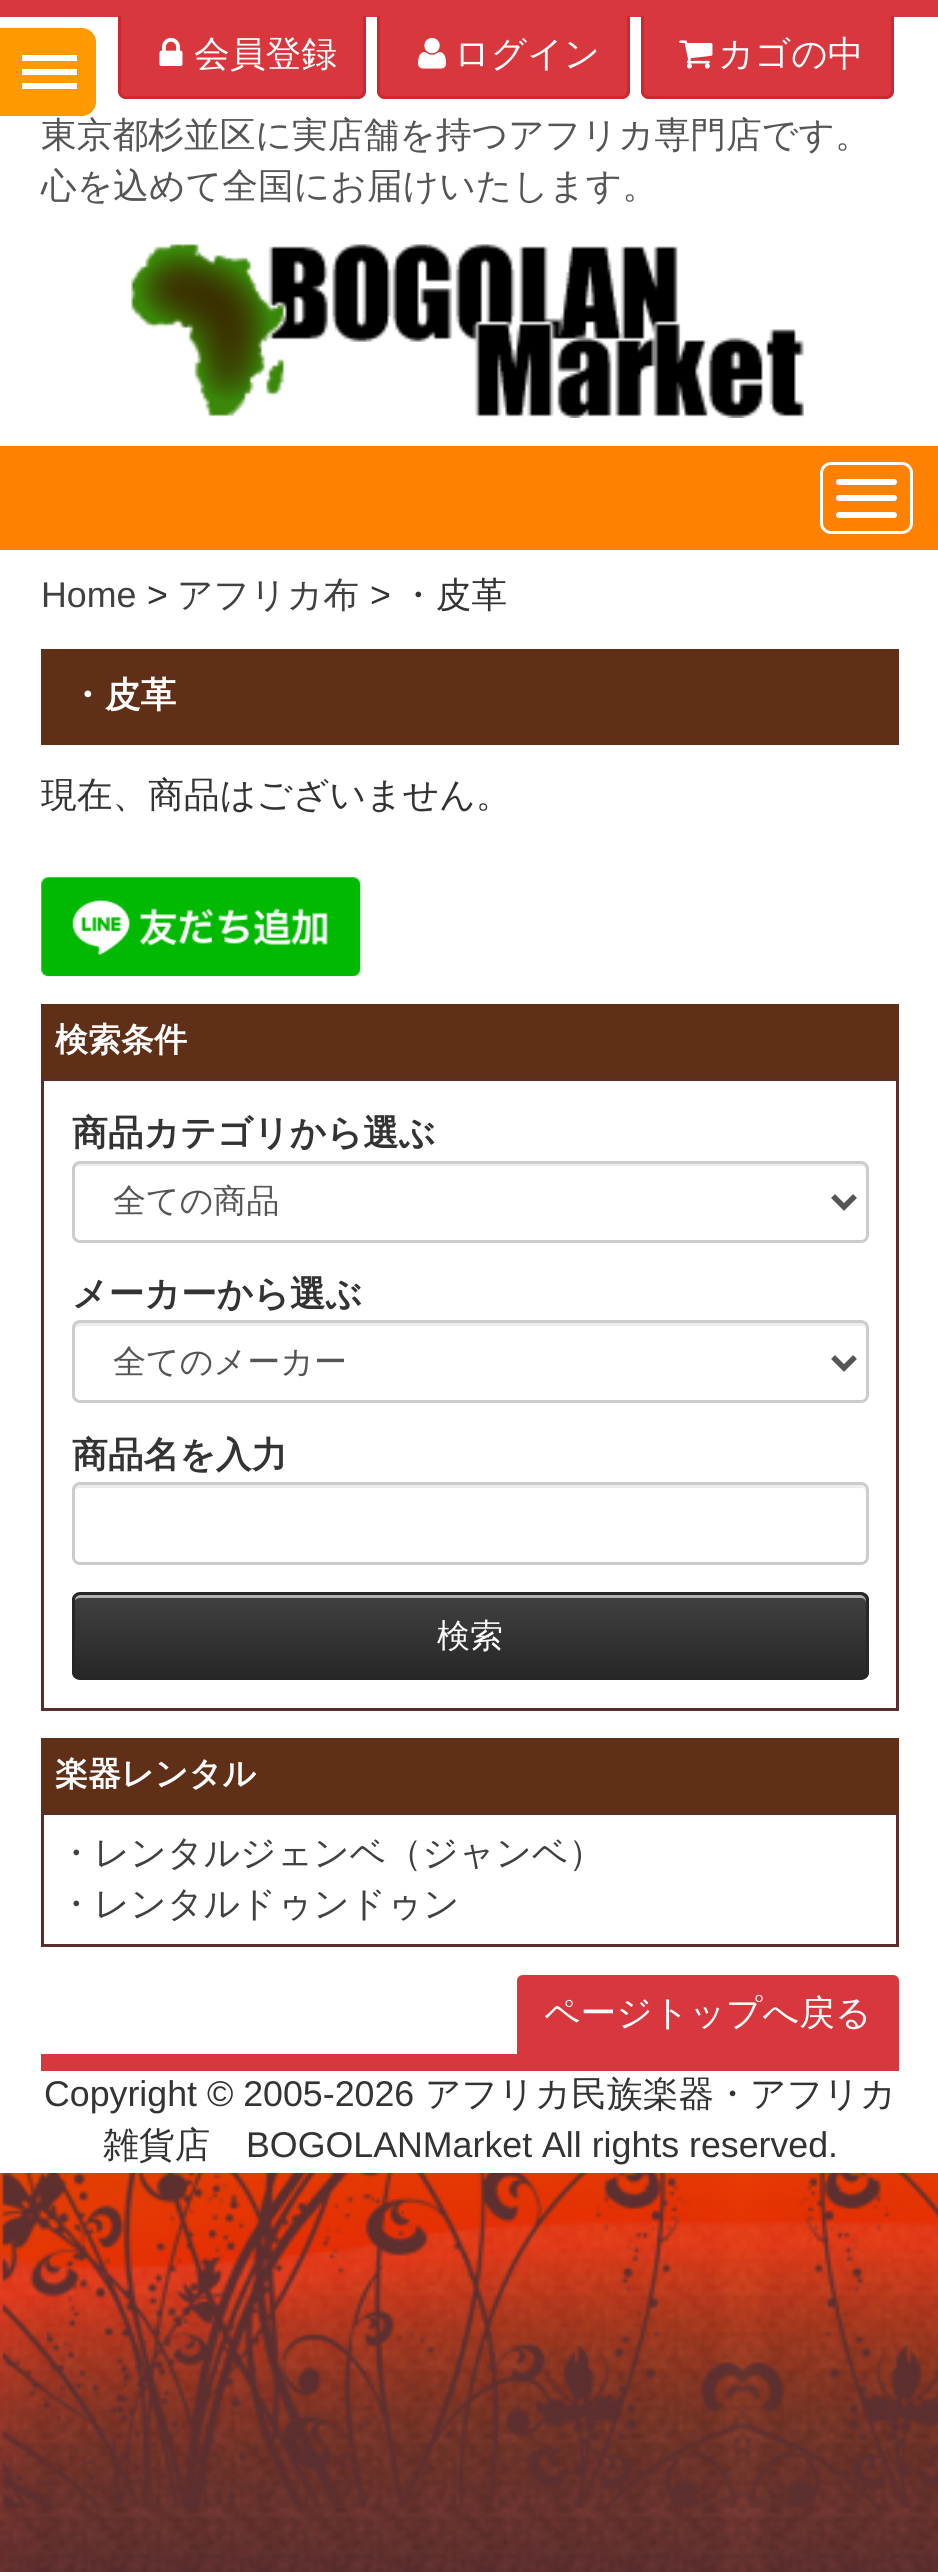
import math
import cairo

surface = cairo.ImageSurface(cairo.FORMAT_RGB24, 938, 2572)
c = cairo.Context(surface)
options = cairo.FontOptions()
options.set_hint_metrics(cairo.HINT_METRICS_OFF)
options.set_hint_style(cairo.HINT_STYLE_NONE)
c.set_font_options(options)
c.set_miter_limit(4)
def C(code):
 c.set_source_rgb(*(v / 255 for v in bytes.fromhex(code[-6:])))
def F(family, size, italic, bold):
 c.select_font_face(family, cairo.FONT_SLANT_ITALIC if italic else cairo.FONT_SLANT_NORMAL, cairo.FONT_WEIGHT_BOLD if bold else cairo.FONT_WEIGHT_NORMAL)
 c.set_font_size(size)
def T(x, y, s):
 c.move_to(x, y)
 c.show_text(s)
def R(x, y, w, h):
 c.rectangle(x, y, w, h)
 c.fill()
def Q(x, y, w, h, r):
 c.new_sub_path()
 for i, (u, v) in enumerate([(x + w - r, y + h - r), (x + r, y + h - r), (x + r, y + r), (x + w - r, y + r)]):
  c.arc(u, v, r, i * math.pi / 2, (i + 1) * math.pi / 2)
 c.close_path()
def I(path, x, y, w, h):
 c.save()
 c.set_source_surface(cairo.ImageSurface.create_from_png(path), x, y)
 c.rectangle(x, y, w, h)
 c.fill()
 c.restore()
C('ffffff')
c.paint()
I('1.png',0,2173,938,399)
C('ff9900')
c.new_path()
c.move_to(0,28)
c.line_to(82,28)
c.curve_to(89.5,28,96,34.5,96,42)
c.line_to(96,102)
c.curve_to(96,109.5,89.5,116,82,116)
c.line_to(0,116)
c.close_path()
c.fill()
C('ffffff')
R(22,69,55,6)
R(22,55,55,6)
R(22,83,55,6)
C('d8373e')
R(0,0,938,17)
c.new_path()
c.move_to(118,17)
c.line_to(366,17)
c.line_to(366,91)
c.curve_to(366,95.5,362.5,99,358,99)
c.line_to(126,99)
c.curve_to(121.5,99,118,95.5,118,91)
c.close_path()
c.fill()
C('cd282f')
c.set_fill_rule(cairo.FILL_RULE_EVEN_ODD)
c.new_path()
c.move_to(118,16)
c.line_to(366,16)
c.line_to(366,91)
c.curve_to(366,95,362,99,358,99)
c.line_to(126,99)
c.curve_to(122,99,118,95,118,91)
c.close_path()
c.move_to(121,16)
c.line_to(363,16)
c.line_to(363,91)
c.curve_to(363,94,361,96,358,96)
c.line_to(126,96)
c.curve_to(123,96,121,94,121,91)
c.close_path()
c.fill()
I('2.png',159,37,24,29)
F('WenQuanYi Zen Hei Medium',35.75,0,0)
C('ffffff')
T(194,66,'会員登録')
C('d8373e')
c.new_path()
c.move_to(377,17)
c.line_to(630,17)
c.line_to(630,91)
c.curve_to(630,95.5,626.5,99,622,99)
c.line_to(385,99)
c.curve_to(380.5,99,377,95.5,377,91)
c.close_path()
c.fill()
C('cd282f')
c.new_path()
c.move_to(377,16)
c.line_to(630,16)
c.line_to(630,91)
c.curve_to(630,95,626,99,622,99)
c.line_to(385,99)
c.curve_to(380,99,377,95,377,91)
c.close_path()
c.move_to(380,16)
c.line_to(627,16)
c.line_to(627,91)
c.curve_to(627,94,625,96,622,96)
c.line_to(385,96)
c.curve_to(382,96,380,94,380,91)
c.close_path()
c.fill()
I('3.png',418,37,29,32)
C('ffffff')
T(454,66,'ログイン')
C('d8373e')
c.new_path()
c.move_to(641,17)
c.line_to(894,17)
c.line_to(894,91)
c.curve_to(894,95.5,890.5,99,886,99)
c.line_to(649,99)
c.curve_to(644.5,99,641,95.5,641,91)
c.close_path()
c.fill()
C('cd282f')
c.new_path()
c.move_to(641,16)
c.line_to(894,16)
c.line_to(894,91)
c.curve_to(894,95,890,99,886,99)
c.line_to(649,99)
c.curve_to(644,99,641,95,641,91)
c.close_path()
c.move_to(644,16)
c.line_to(891,16)
c.line_to(891,91)
c.curve_to(891,94,889,96,886,96)
c.line_to(649,96)
c.curve_to(646,96,644,94,644,91)
c.close_path()
c.fill()
I('4.png',679,40,34,29)
C('ffffff')
T(718,66,'カゴの中')
C('555555')
T(41,147,'東京都杉並区に実店舗を持つアフリカ専門店です。')
T(41,198,'心を込めて全国にお届けいたします。')
I('5.png',131,244,673,174)
C('ff8102')
R(0,446,938,104)
Q(821.5,463.5,90,69,9.5)
C('ffffff')
c.set_line_width(3)
c.stroke()
Q(836,479,61,6,3)
c.fill()
Q(836,495,61,6,3)
c.fill()
Q(836,512,61,6,3)
c.fill()
F('Liberation Sans',35.75,0,0)
C('404040')
T(41,607,'Home')
C('333333')
T(147,607,'>')
F('WenQuanYi Zen Hei Medium',35.75,0,0)
C('404040')
T(177,607,'アフリカ布')
F('Liberation Sans',35.75,0,0)
C('333333')
T(370,607,'>')
F('WenQuanYi Zen Hei Medium',35.75,0,0)
T(400,607,'・皮革')
C('5f2f18')
R(41,649,858,96)
F('WenQuanYi Zen Hei',35.75,0,1)
C('ffffff')
T(69,707,'・皮革')
F('WenQuanYi Zen Hei Medium',35.75,0,0)
C('333333')
T(41,807,'現在、商品はございません。')
I('6.png',41,877,320,100)
c.set_source_rgba(1,1,1,0.75)
R(44,976,314,1)
c.rectangle(42.5,1079.5,855,630)
C('5a2c2c')
c.stroke()
C('5f2f18')
R(41,1004,858,75)
F('WenQuanYi Zen Hei',33,0,1)
C('ffffff')
T(55,1051,'検索条件')
F('WenQuanYi Zen Hei',35.75,0,1)
C('333333')
T(72,1145,'商品カテゴリから選ぶ')
C('ececec')
c.set_fill_rule(cairo.FILL_RULE_WINDING)
c.new_path()
c.move_to(80,1166)
c.line_to(861,1166)
c.curve_to(864,1166,866,1168,866,1172)
c.line_to(866,1169)
c.curve_to(866,1166,863,1163,860,1163)
c.line_to(80,1163)
c.curve_to(77,1163,74,1166,74,1169)
c.line_to(74,1172)
c.curve_to(74,1168,77,1166,80,1166)
c.close_path()
c.fill()
Q(73.5,1162.5,794,79,6.5)
C('cccccc')
c.stroke()
c.new_path()
c.move_to(833,1196)
c.line_to(844,1207)
c.line_to(855,1196)
C('555555')
c.set_line_width(5.5)
c.stroke()
F('WenQuanYi Zen Hei Medium',33,0,0)
T(113,1212,'全ての商品')
F('WenQuanYi Zen Hei',35.75,0,1)
C('333333')
T(72,1306,'メーカーから選ぶ')
C('ececec')
c.new_path()
c.move_to(80,1326)
c.line_to(861,1326)
c.curve_to(864,1326,866,1328,866,1331)
c.line_to(866,1329)
c.curve_to(866,1326,863,1323,860,1323)
c.line_to(80,1323)
c.curve_to(77,1323,74,1326,74,1329)
c.line_to(74,1331)
c.curve_to(74,1328,77,1326,80,1326)
c.close_path()
c.fill()
Q(73.5,1321.5,794,80,6.5)
C('cccccc')
c.set_line_width(3)
c.stroke()
c.new_path()
c.move_to(833,1357)
c.line_to(844,1368)
c.line_to(855,1357)
C('555555')
c.set_line_width(5.5)
c.stroke()
F('WenQuanYi Zen Hei Medium',33,0,0)
T(113,1373,'全てのメーカー')
F('WenQuanYi Zen Hei',35.75,0,1)
C('333333')
T(72,1467,'商品名を入力')
C('ececec')
c.new_path()
c.move_to(80,1488)
c.line_to(861,1488)
c.curve_to(864,1488,866,1490,866,1493)
c.line_to(866,1491)
c.curve_to(866,1488,863,1485,860,1485)
c.line_to(80,1485)
c.curve_to(77,1485,74,1488,74,1491)
c.line_to(74,1493)
c.curve_to(74,1490,77,1488,80,1488)
c.close_path()
c.fill()
Q(73.5,1483.5,794,80,6.5)
C('cccccc')
c.set_line_width(3)
c.stroke()
c.save()
Q(72,1592,797,88,8)
c.clip()
gradient = cairo.LinearGradient(470,1595,470,1678)
gradient.add_color_stop_rgba(0,0.251,0.251,0.251,1)
gradient.add_color_stop_rgba(1,0.153,0.153,0.153,1)
c.set_source(gradient)
R(72,1595,797,83)
c.restore()
C('b2b2b2')
c.new_path()
c.move_to(80,1598)
c.line_to(861,1598)
c.curve_to(864,1598,866,1600,866,1603)
c.line_to(866,1601)
c.curve_to(866,1598,863,1595,860,1595)
c.line_to(80,1595)
c.curve_to(77,1595,74,1598,74,1601)
c.line_to(74,1603)
c.curve_to(74,1600,77,1598,80,1598)
c.close_path()
c.fill()
Q(73.5,1593.5,794,85,6.5)
C('272727')
c.stroke()
F('WenQuanYi Zen Hei Medium',33,0,0)
C('ffffff')
T(437,1647,'検索')
c.rectangle(42.5,1813.5,855,132)
C('5a2c2c')
c.stroke()
C('5f2f18')
R(41,1738,858,75)
F('WenQuanYi Zen Hei',33,0,1)
C('ffffff')
T(55,1785,'楽器レンタル')
F('WenQuanYi Zen Hei Medium',35.75,0,0)
C('404040')
T(58,1865,'・レンタルジェンベ（ジャンベ）')
T(58,1916,'・レンタルドゥンドゥン')
C('d8373e')
R(41,2054,858,17)
c.new_path()
c.move_to(523,1975)
c.line_to(893,1975)
c.curve_to(896.5,1975,899,1977.5,899,1981)
c.line_to(899,2054)
c.line_to(517,2054)
c.line_to(517,1981)
c.curve_to(517,1977.5,519.5,1975,523,1975)
c.close_path()
c.fill()
C('ffffff')
T(544,2025,'ページトップへ戻る')
F('Liberation Sans',35.75,0,0)
C('333333')
T(44,2106,'Copyright © 2005-2026')
F('WenQuanYi Zen Hei Medium',35.75,0,0)
T(425,2106,'アフリカ民族楽器・アフリカ')
T(103,2157,'雑貨店')
F('Liberation Sans',35.75,0,0)
T(246,2157,'BOGOLANMarket All rights reserved.')
surface.write_to_png('o.png')
